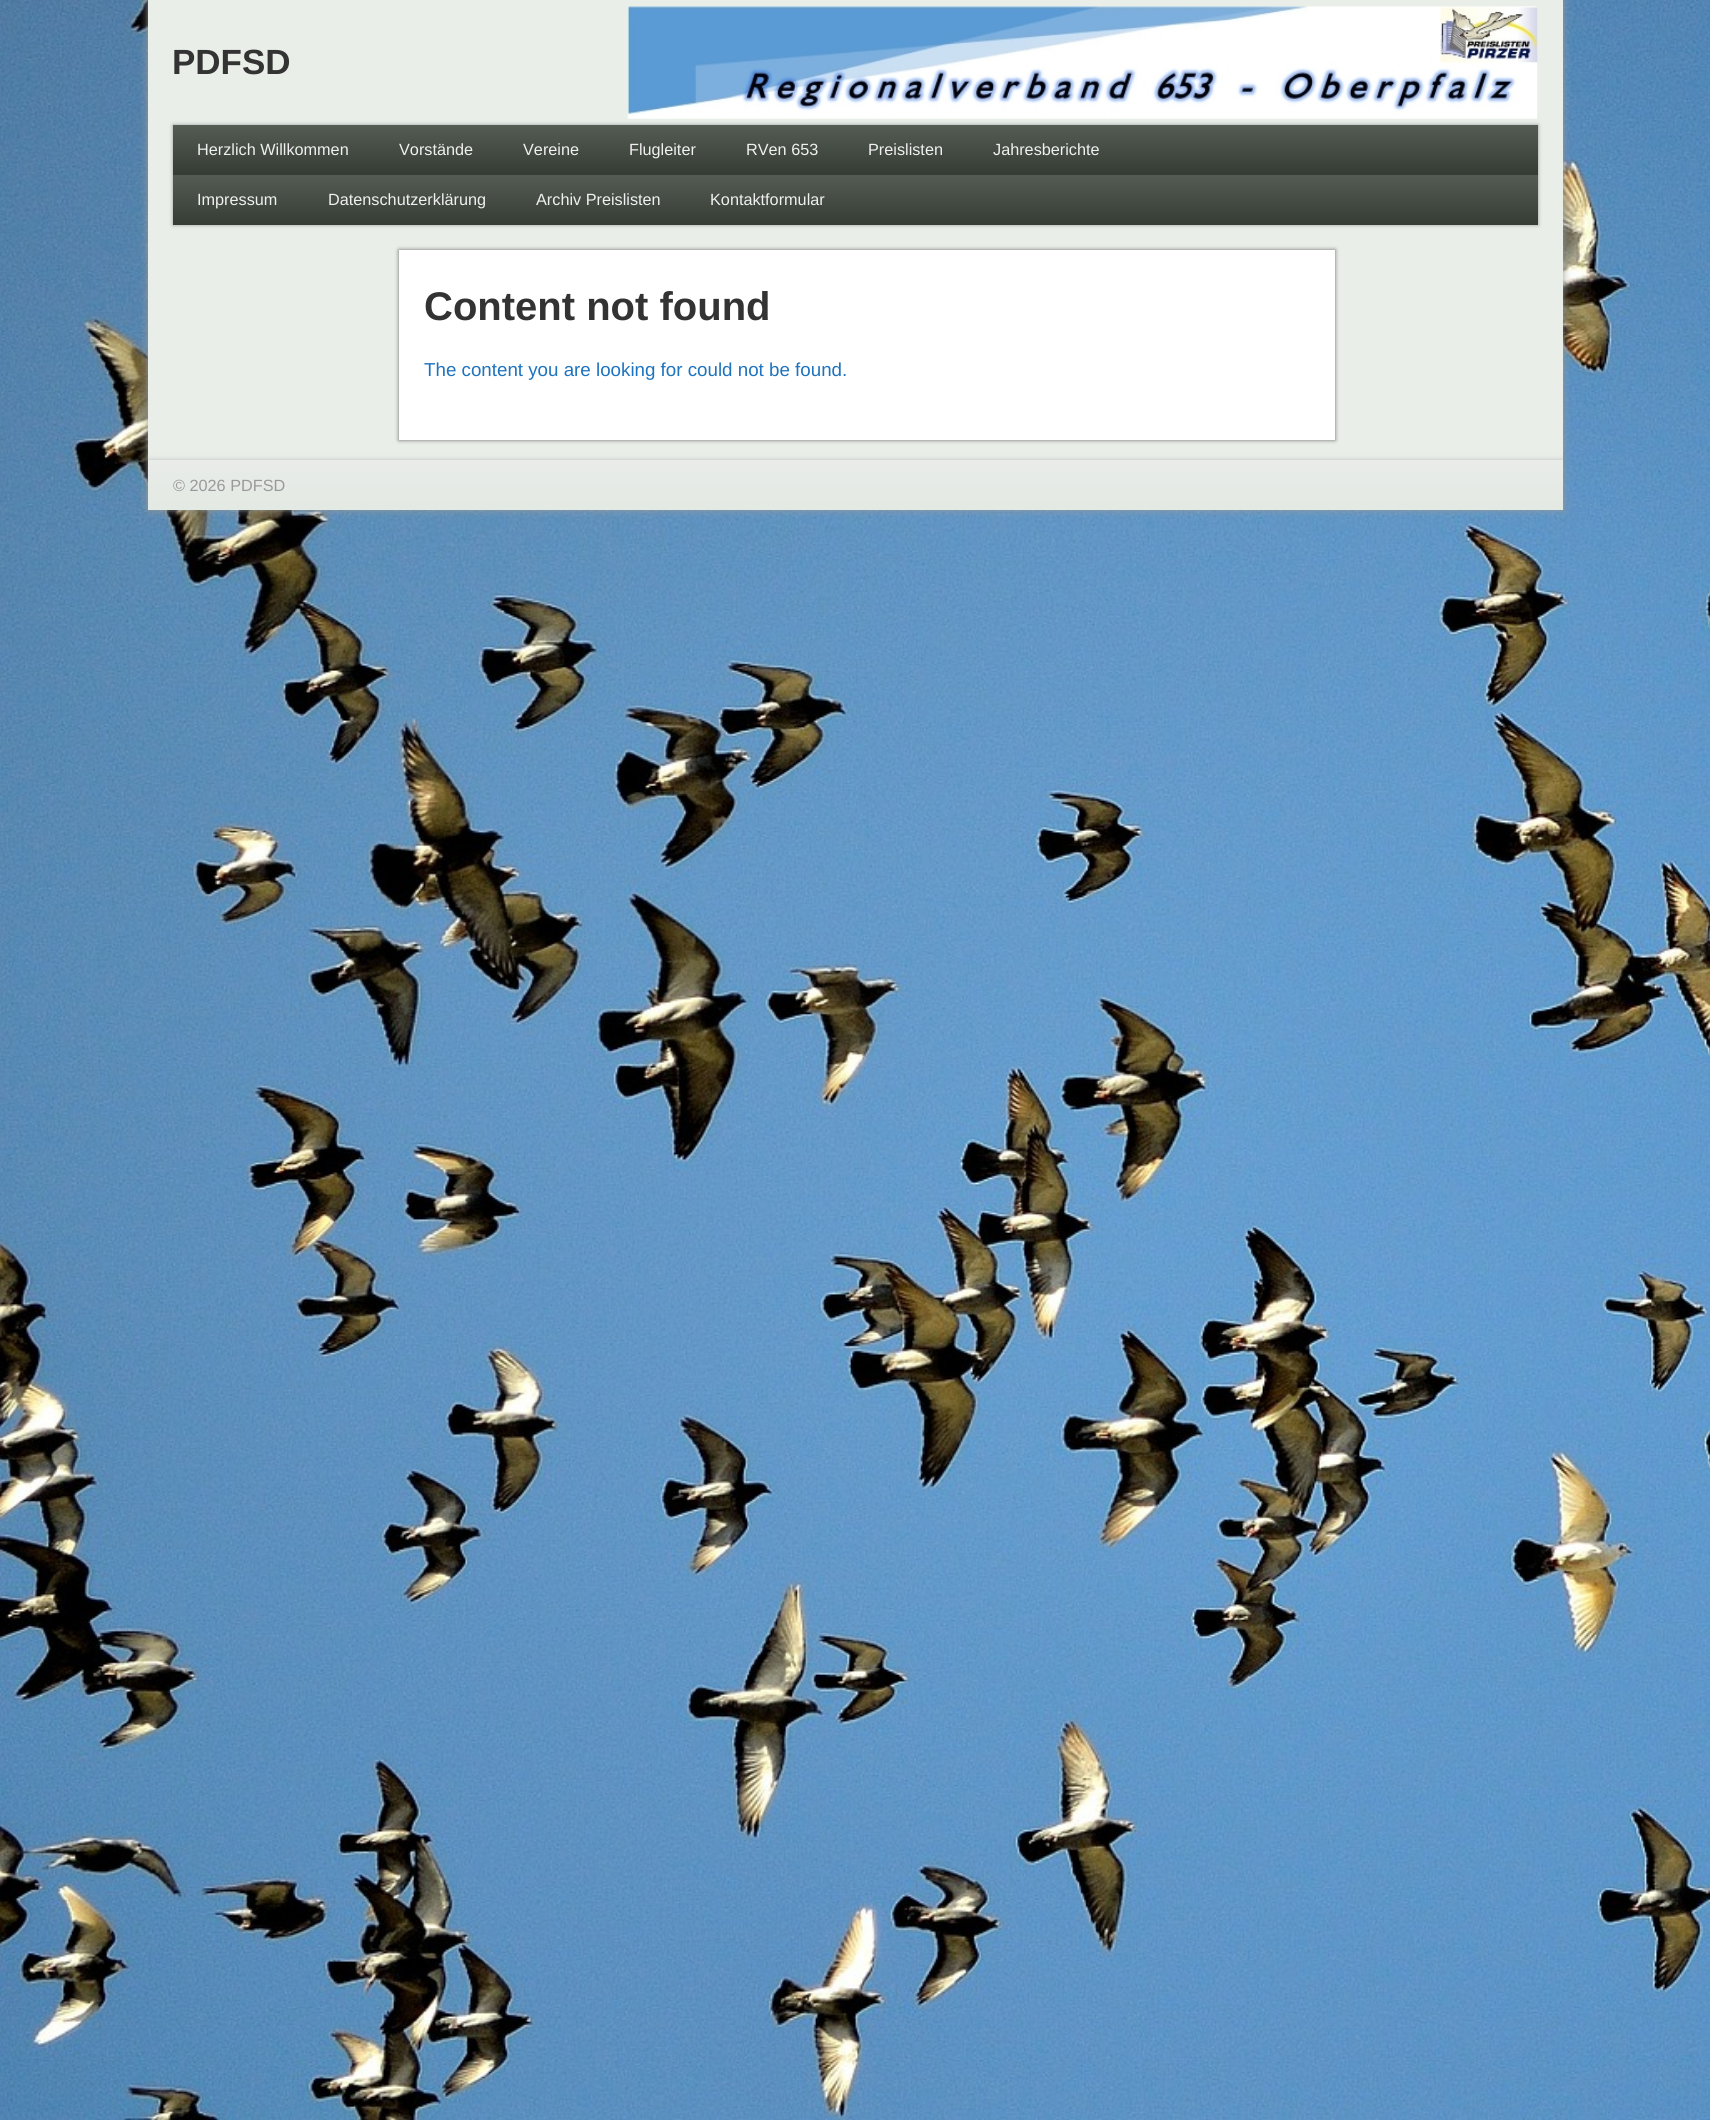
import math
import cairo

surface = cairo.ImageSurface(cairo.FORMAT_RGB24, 1710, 2120)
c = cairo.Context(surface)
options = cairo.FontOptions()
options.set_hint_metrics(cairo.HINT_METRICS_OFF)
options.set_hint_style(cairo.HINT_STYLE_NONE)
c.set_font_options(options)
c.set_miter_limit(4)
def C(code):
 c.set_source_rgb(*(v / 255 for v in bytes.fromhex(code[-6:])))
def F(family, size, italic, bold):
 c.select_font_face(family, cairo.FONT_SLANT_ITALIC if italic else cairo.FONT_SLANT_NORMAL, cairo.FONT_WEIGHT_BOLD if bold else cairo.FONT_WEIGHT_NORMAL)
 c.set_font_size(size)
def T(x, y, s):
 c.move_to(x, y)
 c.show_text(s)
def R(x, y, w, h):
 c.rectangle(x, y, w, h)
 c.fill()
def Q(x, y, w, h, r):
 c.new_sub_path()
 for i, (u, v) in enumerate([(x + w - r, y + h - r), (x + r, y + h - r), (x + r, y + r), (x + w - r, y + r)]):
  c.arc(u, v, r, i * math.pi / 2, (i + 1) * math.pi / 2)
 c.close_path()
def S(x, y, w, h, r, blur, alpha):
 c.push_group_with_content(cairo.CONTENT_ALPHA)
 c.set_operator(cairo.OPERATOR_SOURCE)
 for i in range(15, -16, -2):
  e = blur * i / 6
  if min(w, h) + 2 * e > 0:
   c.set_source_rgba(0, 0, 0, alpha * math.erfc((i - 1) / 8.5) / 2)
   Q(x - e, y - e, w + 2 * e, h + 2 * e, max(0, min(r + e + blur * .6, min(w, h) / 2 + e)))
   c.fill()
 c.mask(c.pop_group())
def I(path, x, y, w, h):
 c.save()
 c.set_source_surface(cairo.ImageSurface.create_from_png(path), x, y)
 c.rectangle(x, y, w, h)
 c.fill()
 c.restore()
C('ffffff')
c.paint()
I('1.png',0,0,1710,2120)
C('999999')
S(148,0,1415,510,0,4,1)
C('e9eee9')
R(148,0,1415,460)
F('Liberation Sans',35,0,1)
C('333333')
T(172,74,'PDFSD')
C('999999')
S(173,125,1365,100,0,2,1)
I('2.png',627,6,911,113)
gradient = cairo.LinearGradient(855,125,855,275)
gradient.add_color_stop_rgba(0,0.329,0.361,0.329,1)
gradient.add_color_stop_rgba(.33,0.204,0.235,0.204,1)
gradient.add_color_stop_rgba(.33,0.329,0.361,0.329,1)
gradient.add_color_stop_rgba(.67,0.204,0.235,0.204,1)
gradient.add_color_stop_rgba(.67,0.329,0.361,0.329,1)
gradient.add_color_stop_rgba(1,0.204,0.235,0.204,1)
c.set_source(gradient)
R(173,125,1365,100)
F('Liberation Sans',16.25,0,0)
C('f0f0f0')
T(197,155,'Herzlich Willkommen')
T(399,155,'Vorstände')
T(523,155,'Vereine')
T(629,155,'Flugleiter')
T(746,155,'RVen 653')
T(868,155,'Preislisten')
T(993,155,'Jahresberichte')
T(197,205,'Impressum')
T(328,205,'Datenschutzerklärung')
T(536,205,'Archiv Preislisten')
T(710,205,'Kontaktformular')
C('999999')
S(399,250,936,190,0,2,1)
C('ffffff')
R(399,250,936,190)
c.save()
c.set_fill_rule(cairo.FILL_RULE_EVEN_ODD)
c.new_path()
c.move_to(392,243)
c.line_to(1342,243)
c.line_to(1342,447)
c.line_to(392,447)
c.close_path()
c.move_to(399,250)
c.line_to(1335,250)
c.line_to(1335,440)
c.line_to(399,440)
c.close_path()
c.clip()
C('999999')
S(399,250,936,190,0,2,1)
c.restore()
F('Liberation Sans',40,0,1)
C('333333')
T(424,320,'Content not found')
F('Liberation Sans',18.75,0,0)
C('1e73be')
T(424,376,'The content you are looking for could not be found.')
c.save()
c.rectangle(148,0,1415,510)
c.clip()
C('cccccc')
S(148,459,1415,50,0,2,1)
c.restore()
gradient = cairo.LinearGradient(855,460,855,510)
gradient.add_color_stop_rgba(0,0.914,0.925,0.914,1)
gradient.add_color_stop_rgba(1,0.89,0.914,0.89,1)
c.set_source(gradient)
R(148,460,1415,50)
F('Liberation Sans',16.25,0,0)
C('999999')
T(173,491,'© 2026 PDFSD')
surface.write_to_png('o.png')
